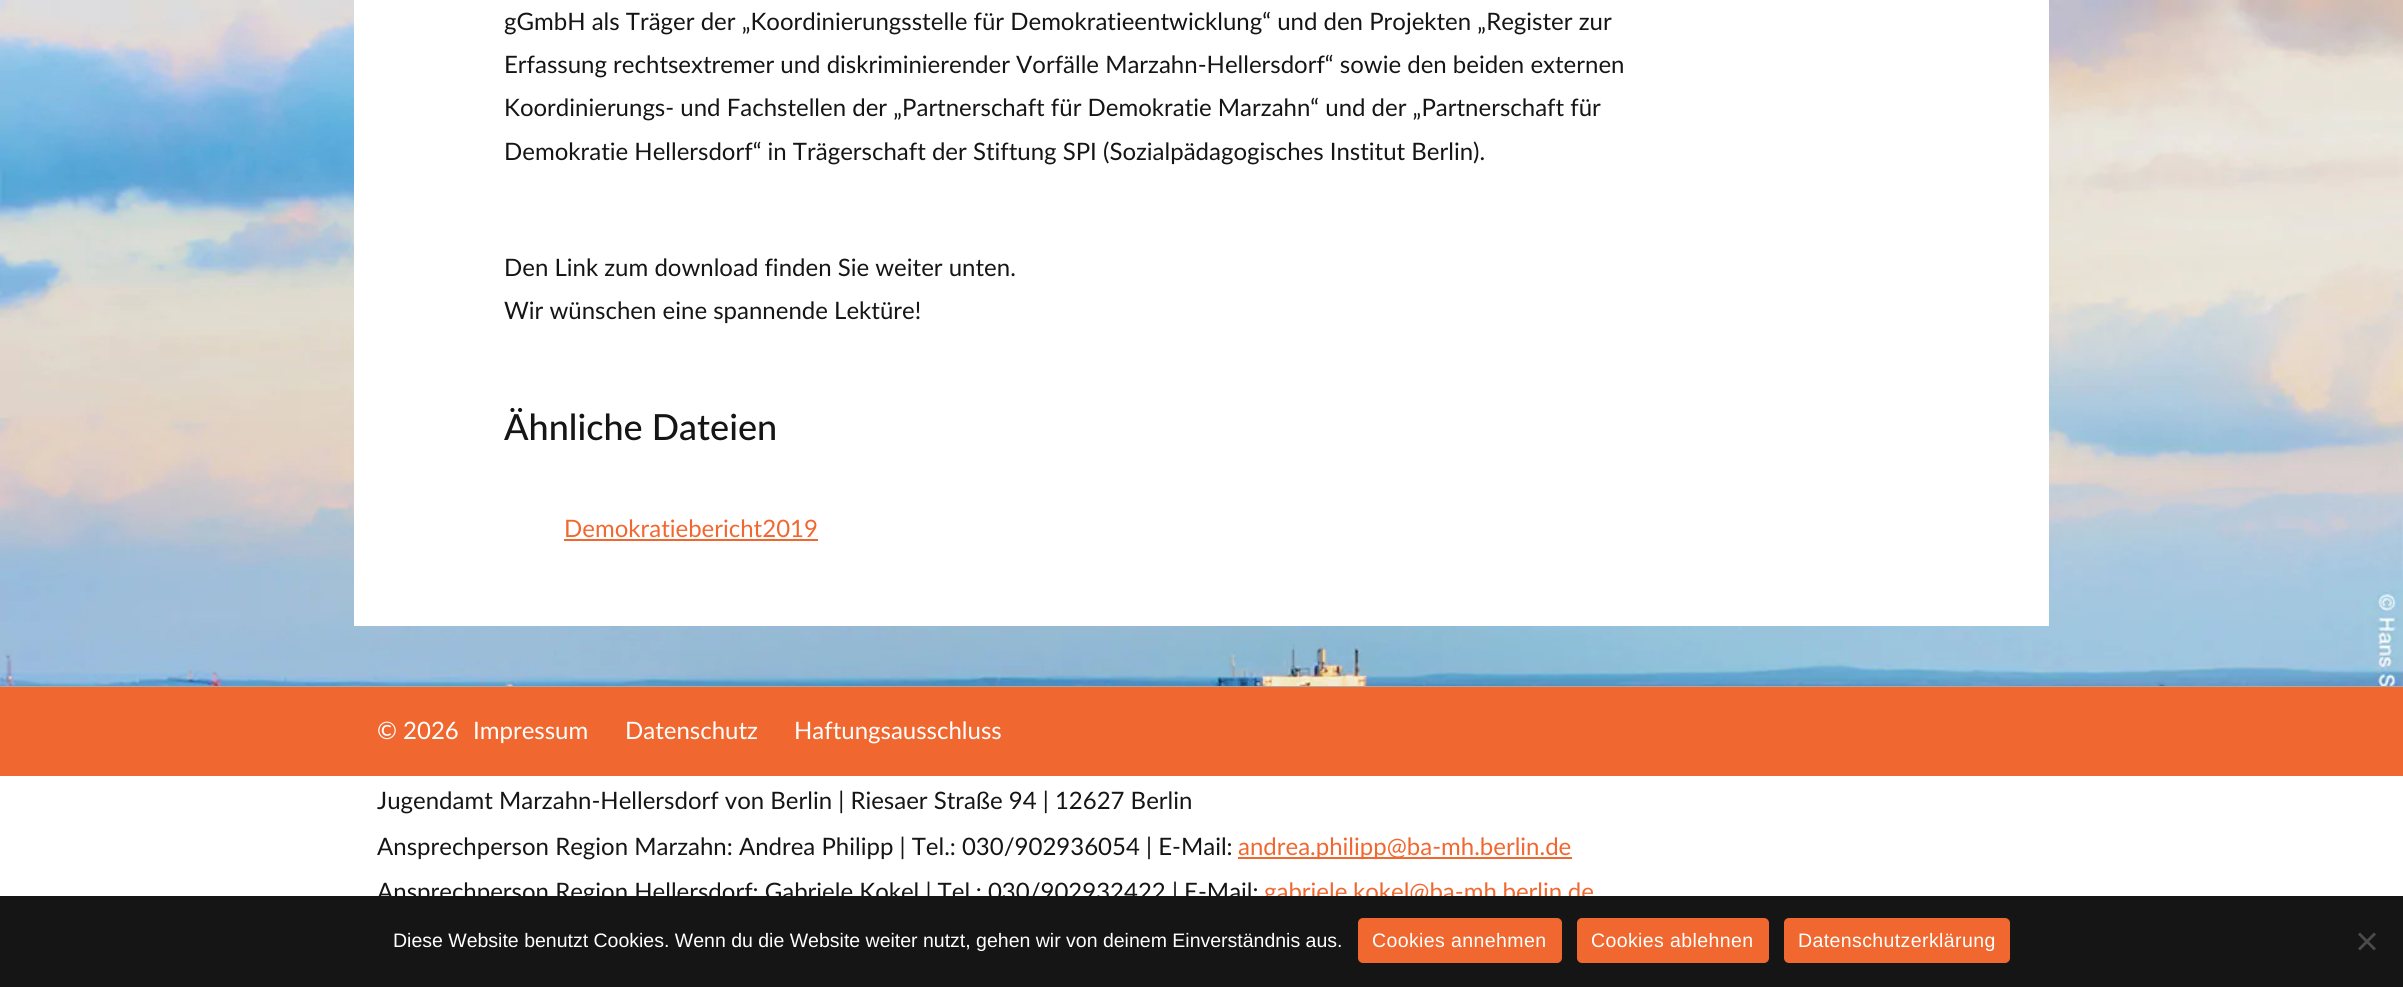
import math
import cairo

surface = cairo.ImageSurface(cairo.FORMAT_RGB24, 2403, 987)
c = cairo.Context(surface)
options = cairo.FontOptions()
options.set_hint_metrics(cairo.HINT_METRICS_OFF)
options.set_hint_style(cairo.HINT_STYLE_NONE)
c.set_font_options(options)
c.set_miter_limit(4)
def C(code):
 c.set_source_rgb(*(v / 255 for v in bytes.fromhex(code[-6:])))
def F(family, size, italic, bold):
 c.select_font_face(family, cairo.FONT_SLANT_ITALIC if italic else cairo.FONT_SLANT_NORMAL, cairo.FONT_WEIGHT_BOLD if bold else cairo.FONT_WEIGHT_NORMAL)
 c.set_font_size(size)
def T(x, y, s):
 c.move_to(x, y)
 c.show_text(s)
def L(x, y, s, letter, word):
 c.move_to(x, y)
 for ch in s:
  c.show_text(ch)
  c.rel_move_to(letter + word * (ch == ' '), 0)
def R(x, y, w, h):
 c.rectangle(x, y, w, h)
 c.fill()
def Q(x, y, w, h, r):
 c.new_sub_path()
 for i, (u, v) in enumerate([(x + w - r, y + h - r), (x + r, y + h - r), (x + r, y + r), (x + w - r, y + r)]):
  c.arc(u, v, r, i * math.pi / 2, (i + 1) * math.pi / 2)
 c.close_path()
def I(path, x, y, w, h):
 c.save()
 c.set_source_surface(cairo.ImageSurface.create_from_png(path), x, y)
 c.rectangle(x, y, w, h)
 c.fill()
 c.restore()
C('ffffff')
c.paint()
I('1.png',0,0,2403,686)
C('ffffff')
R(354,0,1695,626)
F('Lato',24,0,0)
C('151515')
T(504,30,'gGmbH als Träger der „Koordinierungsstelle für Demokratieentwicklung“ und den Projekten „Register zur')
T(504,73,'Erfassung rechtsextremer und diskriminierender Vorfälle Marzahn-Hellersdorf“ sowie den beiden externen')
T(504,116,'Koordinierungs- und Fachstellen der „Partnerschaft für Demokratie Marzahn“ und der „Partnerschaft für')
T(504,160,'Demokratie Hellersdorf“ in Trägerschaft der Stiftung SPI (Sozialpädagogisches Institut Berlin).')
T(504,276,'Den Link zum download finden Sie weiter unten.')
T(504,319,'Wir wünschen eine spannende Lektüre!')
F('Lato Medium',36,0,0)
T(504,440,'Ähnliche Dateien')
F('Lato',24,0,0)
C('f06830')
T(564,537,'Demokratiebericht2019')
R(564,539,254,2)
C('ababab')
R(0,686,2403,1)
C('f06830')
R(0,687,2403,89)
C('ffffff')
T(377,739,'© 2026')
T(473,739,'Impressum')
T(625,739,'Datenschutz')
T(794,739,'Haftungsausschluss')
C('151515')
T(377,809,'Jugendamt Marzahn-Hellersdorf von Berlin | Riesaer Straße 94 | 12627 Berlin')
T(377,855,'Ansprechperson Region Marzahn: Andrea Philipp | Tel.: 030/902936054 | E-Mail:')
C('f06830')
R(1238,857,334,2)
T(1238,855,'andrea.philipp@ba-mh.berlin.de')
C('151515')
T(377,900,'Ansprechperson Region Hellersdorf: Gabriele Kokel | Tel.: 030/902932422 | E-Mail:')
C('f06830')
T(1264,900,'gabriele.kokel@ba-mh.berlin.de')
C('151515')
R(0,896,2403,91)
F('Liberation Sans',19.5,0,0)
C('ffffff')
T(393,947,'Diese Website benutzt Cookies. Wenn du die Website weiter nutzt, gehen wir von deinem Einverständnis aus.')
C('f06830')
Q(1358,918,204,45,5)
c.fill()
C('ffffff')
L(1372,947,'Cookies annehmen',.4,0)
C('f06830')
Q(1577,918,192,45,5)
c.fill()
C('ffffff')
L(1591,947,'Cookies ablehnen',.4,0)
C('f06830')
Q(1784,918,226,45,5)
c.fill()
C('ffffff')
L(1798,947,'Datenschutzerklärung',.4,0)
C('4b4b4b')
c.new_path()
c.move_to(2374,932.5)
c.line_to(2376,934.5)
c.line_to(2360,950.5)
c.line_to(2358,948.5)
c.close_path()
c.fill()
c.new_path()
c.move_to(2358,934.5)
c.line_to(2360,932.5)
c.line_to(2376,948.5)
c.line_to(2374,950.5)
c.close_path()
c.fill()
surface.write_to_png('o.png')
